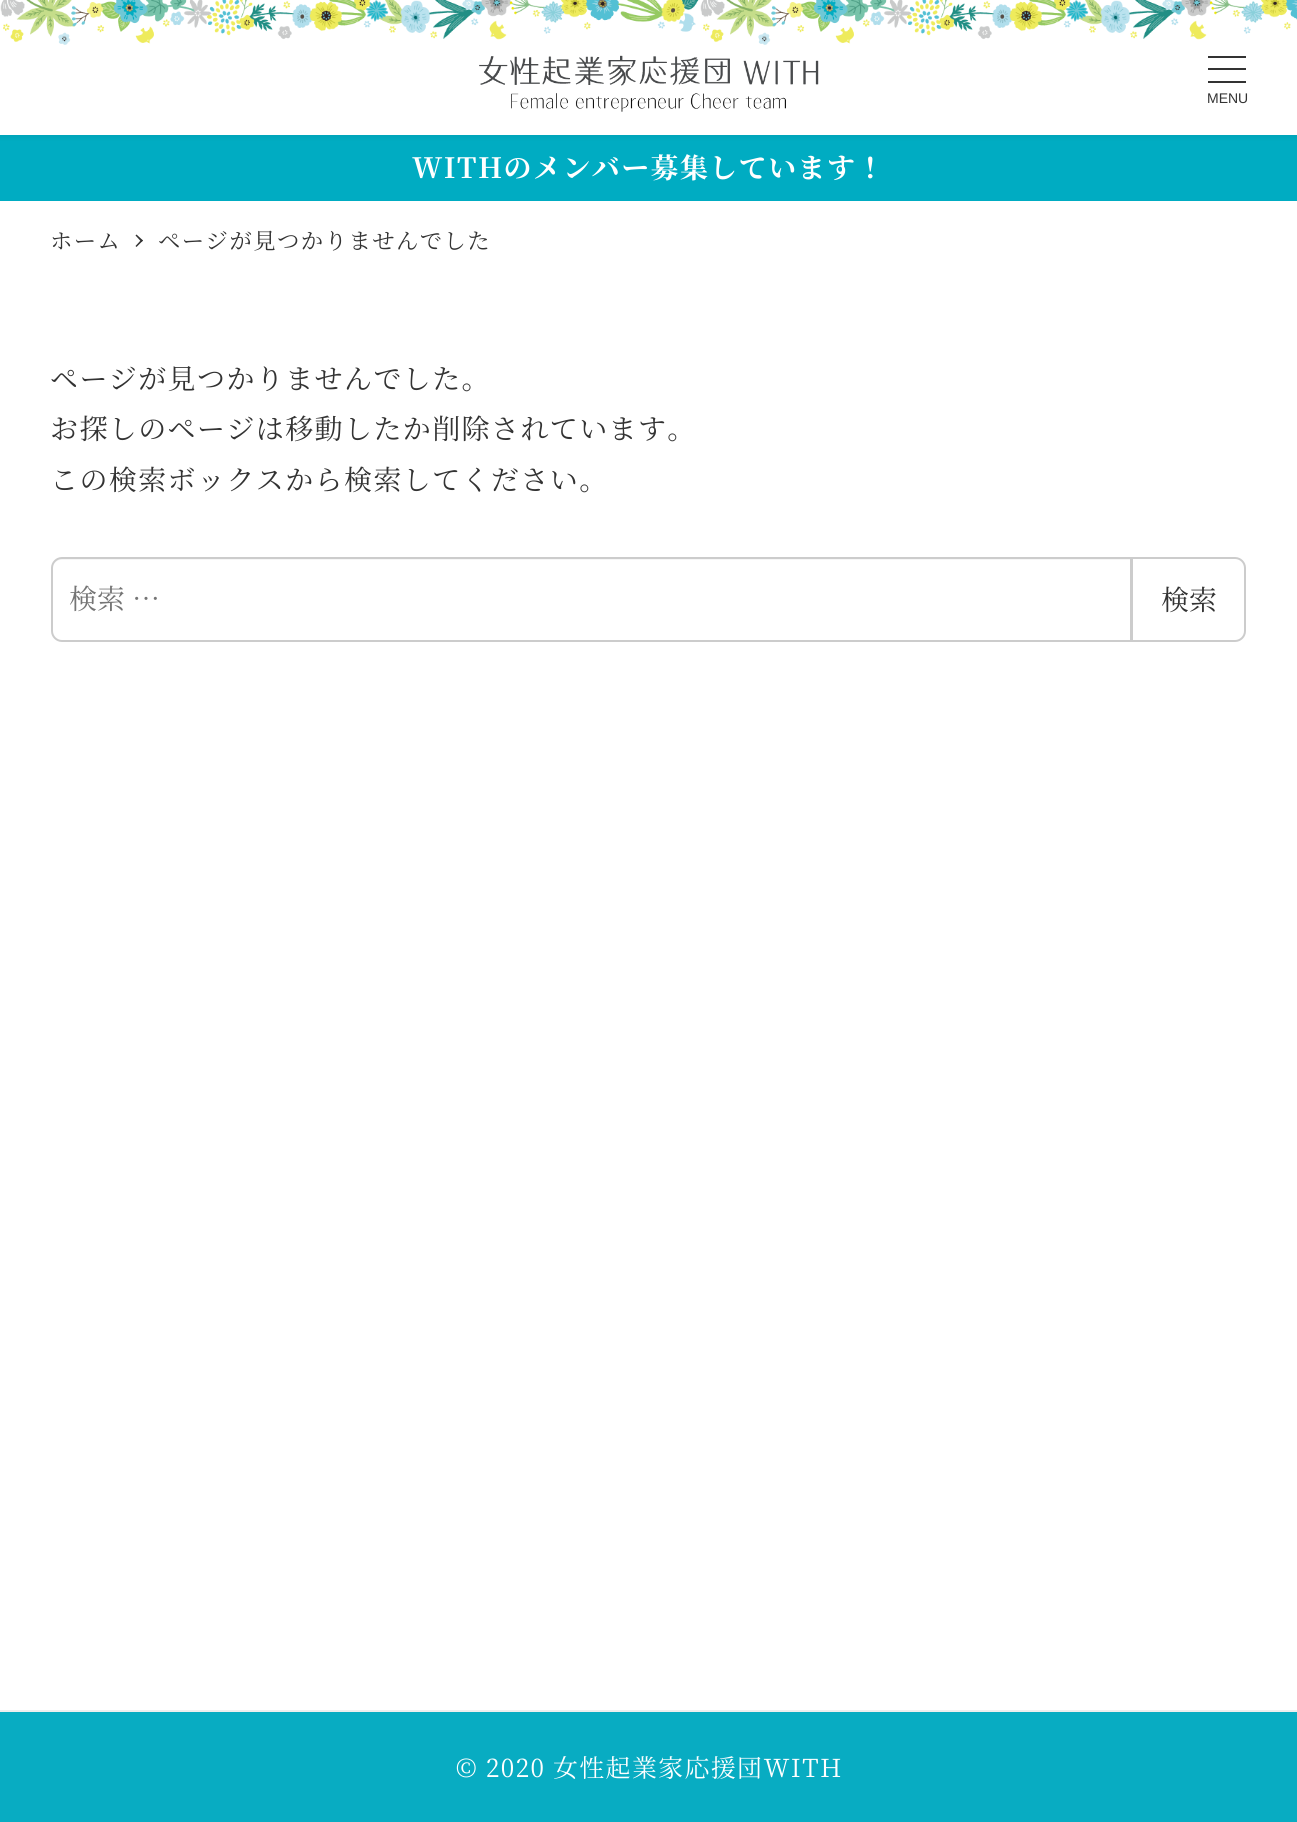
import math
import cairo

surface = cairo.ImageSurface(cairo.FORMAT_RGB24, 1297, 1822)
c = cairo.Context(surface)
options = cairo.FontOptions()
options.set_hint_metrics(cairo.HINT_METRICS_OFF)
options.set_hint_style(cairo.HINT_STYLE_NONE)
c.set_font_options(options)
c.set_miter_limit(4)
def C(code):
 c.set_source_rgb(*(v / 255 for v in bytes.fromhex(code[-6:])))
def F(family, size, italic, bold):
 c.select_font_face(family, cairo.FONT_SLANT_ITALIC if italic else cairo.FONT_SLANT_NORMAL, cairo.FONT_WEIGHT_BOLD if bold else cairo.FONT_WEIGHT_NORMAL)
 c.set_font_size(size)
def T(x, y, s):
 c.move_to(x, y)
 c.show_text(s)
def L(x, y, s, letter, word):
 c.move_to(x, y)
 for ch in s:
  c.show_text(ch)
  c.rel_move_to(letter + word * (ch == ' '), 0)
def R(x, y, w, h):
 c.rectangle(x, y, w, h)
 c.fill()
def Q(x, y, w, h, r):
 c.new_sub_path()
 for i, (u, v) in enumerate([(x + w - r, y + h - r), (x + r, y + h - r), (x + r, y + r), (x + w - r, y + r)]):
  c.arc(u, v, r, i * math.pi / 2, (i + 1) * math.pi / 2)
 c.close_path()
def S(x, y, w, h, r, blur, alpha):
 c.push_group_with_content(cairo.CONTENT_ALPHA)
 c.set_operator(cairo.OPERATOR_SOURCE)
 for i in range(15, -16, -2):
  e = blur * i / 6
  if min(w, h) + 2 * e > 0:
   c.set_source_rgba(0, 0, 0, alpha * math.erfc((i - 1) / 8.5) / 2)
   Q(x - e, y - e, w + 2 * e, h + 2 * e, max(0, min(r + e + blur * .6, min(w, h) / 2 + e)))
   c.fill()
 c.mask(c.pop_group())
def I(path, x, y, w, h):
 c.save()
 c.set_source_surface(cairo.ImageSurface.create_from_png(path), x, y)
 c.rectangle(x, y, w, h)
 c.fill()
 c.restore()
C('ffffff')
c.paint()
C('00acc2')
R(0,135,1297,66)
C('000000')
S(-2,0,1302,138,0,2,.05)
C('ffffff')
R(0,0,1297,135)
I('1.png',0,0,1297,45)
I('2.png',479,55,340,57)
C('333333')
R(1208,56,38,2)
R(1208,68,38,2)
R(1208,81,38,2)
F('Liberation Sans',14,0,0)
T(1207,103,'MENU')
F('Noto Serif JP',28,0,1)
C('ffffff')
L(412,178,'WITHのメンバー募集しています！',1.4,0)
F('Noto Serif JP',22.4,0,0)
C('333333')
L(50,249,'ホーム',1.4,0)
c.new_path()
c.move_to(136.5,234.5)
c.line_to(143,240.5)
c.line_to(141.5,242)
c.line_to(135.5,235.5)
c.close_path()
c.fill()
c.new_path()
c.move_to(141.5,239.5)
c.line_to(143,240.5)
c.line_to(136.5,247)
c.line_to(135.5,246)
c.close_path()
c.fill()
L(158,249,'ページが見つかりませんでした',1.4,0)
F('Noto Serif JP',28,0,0)
L(50,389,'ページが見つかりませんでした。',1.4,0)
L(50,439,'お探しのページは移動したか削除されています。',1.4,0)
L(50,490,'この検索ボックスから検索してください。',1.4,0)
c.new_path()
c.move_to(1132,558)
c.line_to(1235,558)
c.curve_to(1240.5,558,1245,562.5,1245,568)
c.line_to(1245,631)
c.curve_to(1245,636.5,1240.5,641,1235,641)
c.line_to(1132,641)
c.close_path()
C('cccccc')
c.stroke()
C('ffffff')
c.new_path()
c.move_to(62,557)
c.line_to(1132,557)
c.line_to(1132,642)
c.line_to(62,642)
c.curve_to(56,642,51,637,51,631)
c.line_to(51,568)
c.curve_to(51,562,56,557,62,557)
c.close_path()
c.fill()
C('f6f6f6')
c.new_path()
c.move_to(61,560)
c.line_to(1130,560)
c.line_to(1130,641)
c.line_to(1131,641)
c.line_to(1131,558)
c.line_to(62,558)
c.curve_to(58,558,55,560,54,564)
c.curve_to(55,562,58,560,61,560)
c.close_path()
c.fill()
c.new_path()
c.move_to(62,558)
c.line_to(1131,558)
c.line_to(1131,641)
c.line_to(62,641)
c.curve_to(56.5,641,52,636.5,52,631)
c.line_to(52,568)
c.curve_to(52,562.5,56.5,558,62,558)
c.close_path()
C('cccccc')
c.stroke()
C('757575')
T(69,609,'検索')
T(132,609,'…')
C('333333')
T(1161,610,'検索')
C('eeeeee')
R(0,1710,1297,2)
C('08acc2')
R(0,1712,1297,110)
F('Noto Serif JP',24.9,0,0)
C('ffffff')
L(456,1777,'©',1.4,0)
L(486,1777,'2020',1.4,0)
L(553,1777,'女性起業家応援団WITH',1.4,0)
surface.write_to_png('o.png')
